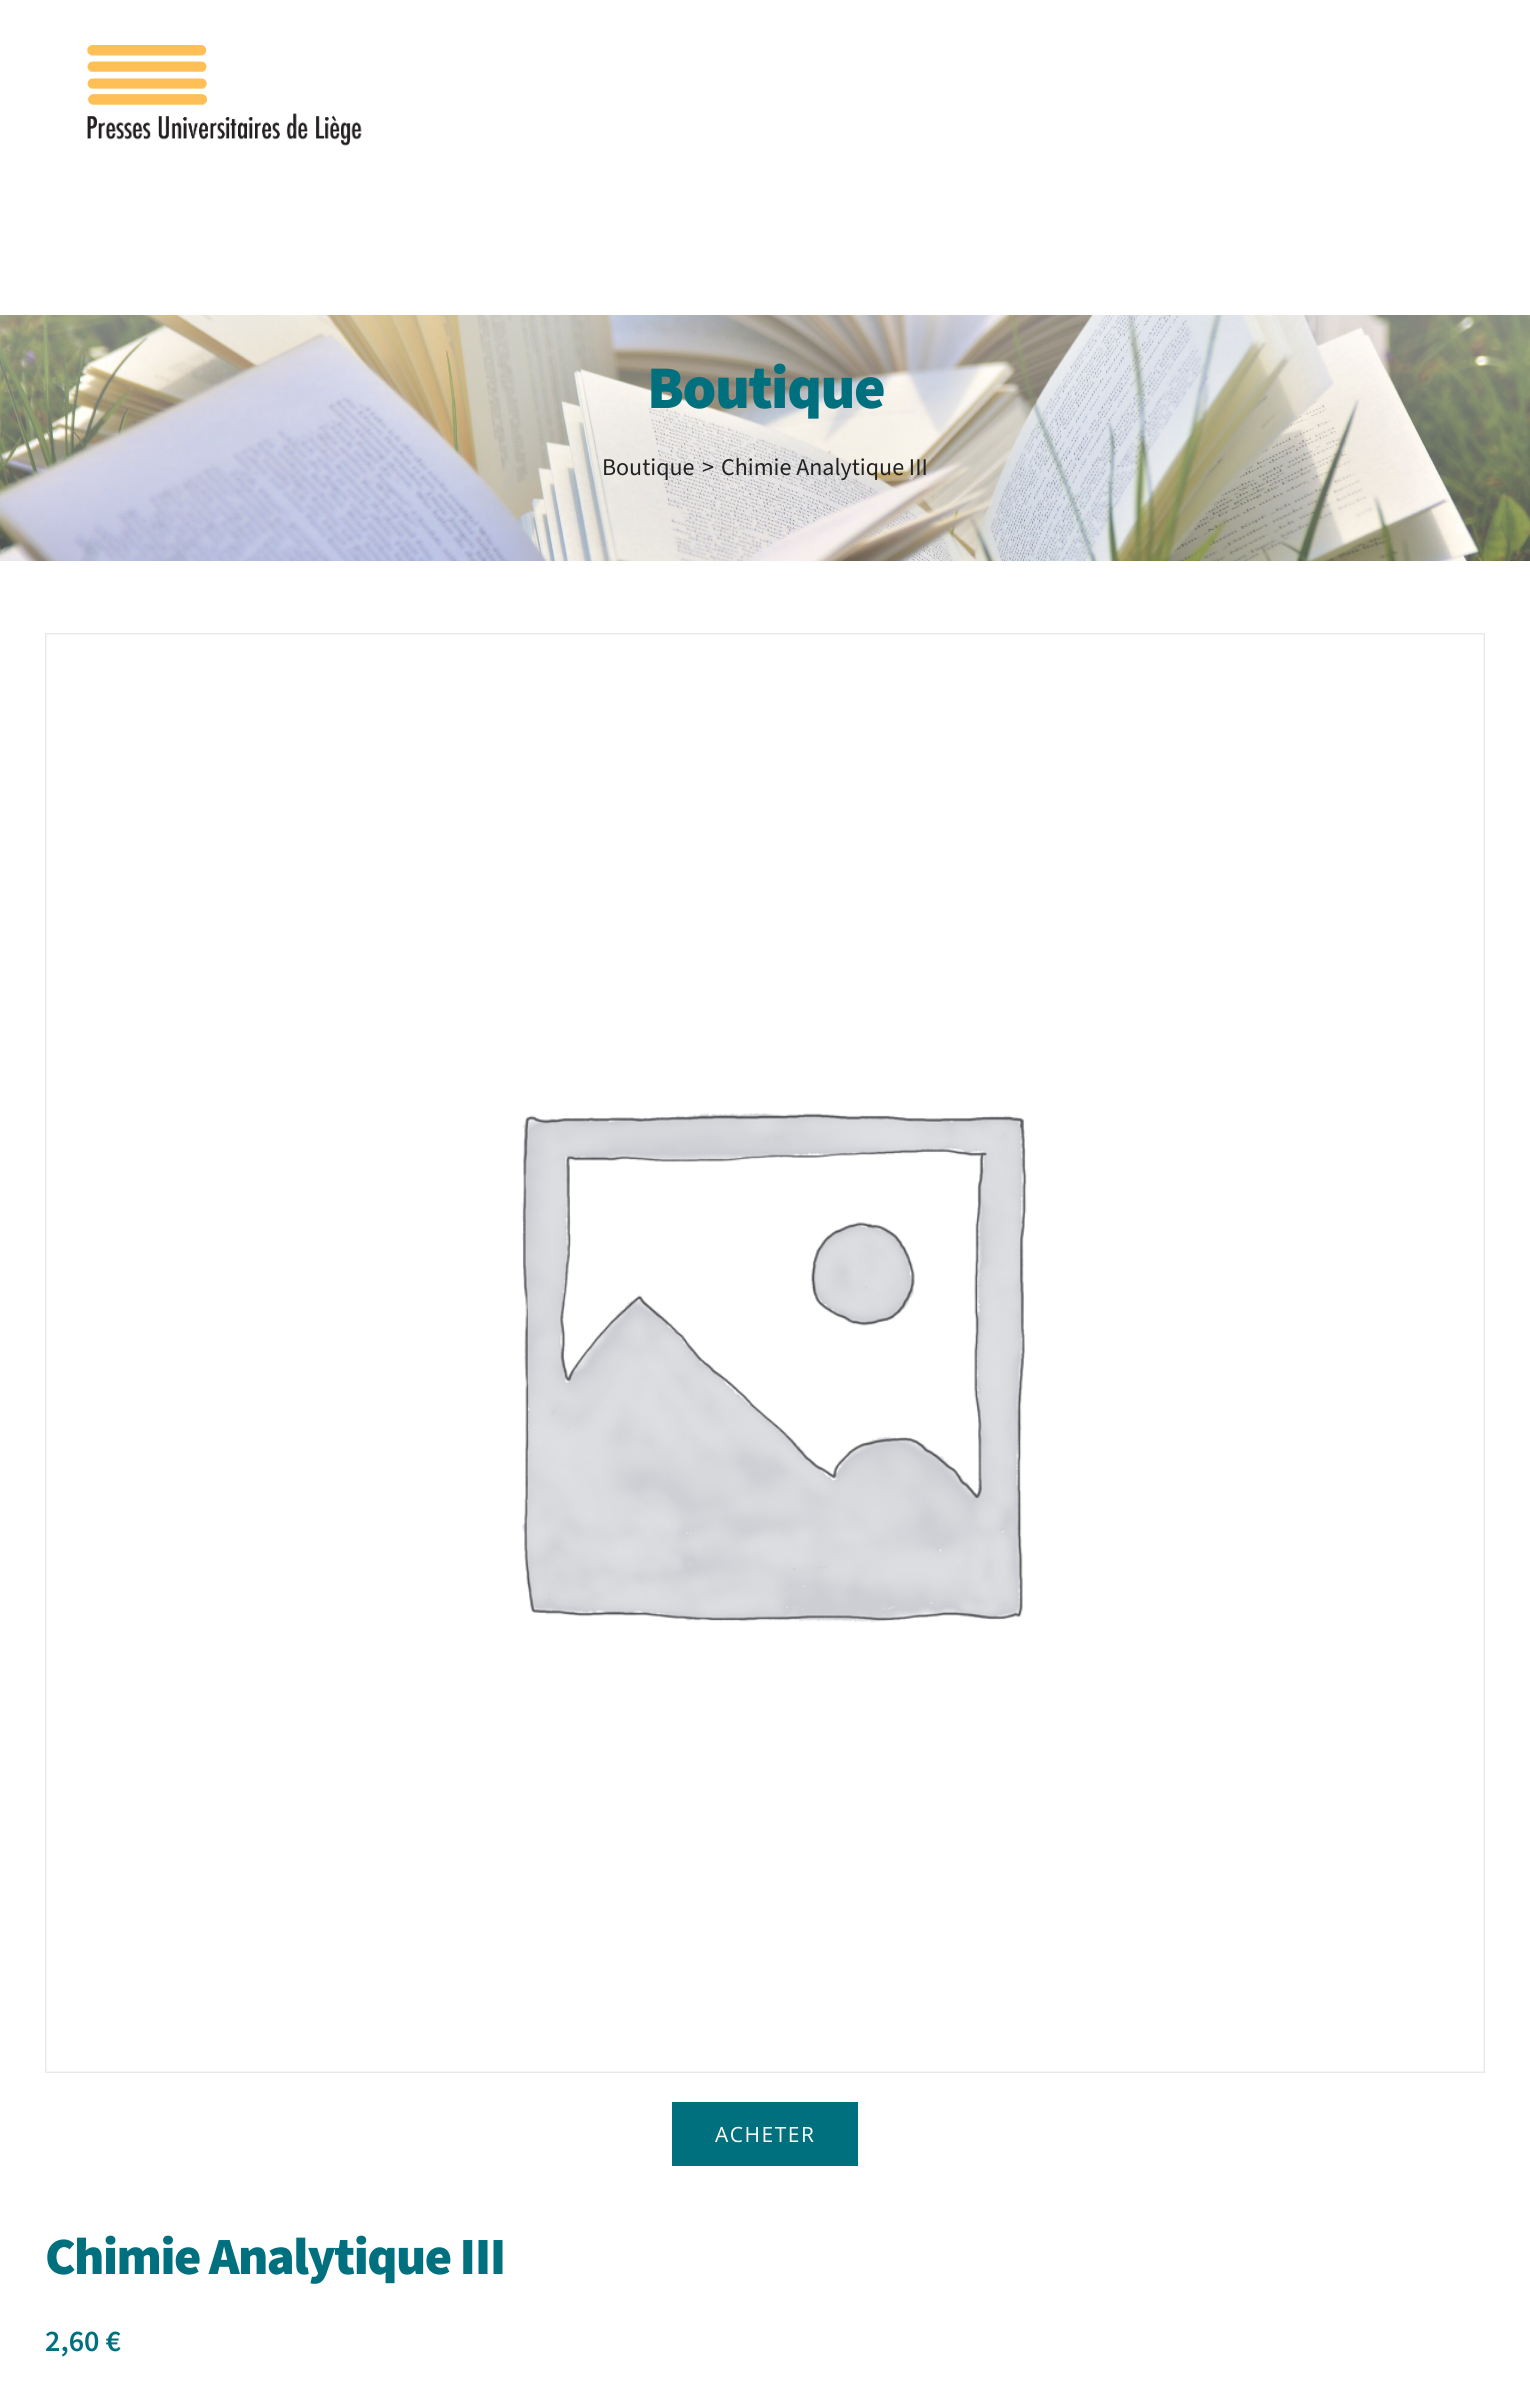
import math
import cairo

surface = cairo.ImageSurface(cairo.FORMAT_RGB24, 1530, 2384)
c = cairo.Context(surface)
options = cairo.FontOptions()
options.set_hint_metrics(cairo.HINT_METRICS_OFF)
options.set_hint_style(cairo.HINT_STYLE_NONE)
c.set_font_options(options)
c.set_miter_limit(4)
def C(code):
 c.set_source_rgb(*(v / 255 for v in bytes.fromhex(code[-6:])))
def F(family, size, italic, bold):
 c.select_font_face(family, cairo.FONT_SLANT_ITALIC if italic else cairo.FONT_SLANT_NORMAL, cairo.FONT_WEIGHT_BOLD if bold else cairo.FONT_WEIGHT_NORMAL)
 c.set_font_size(size)
def T(x, y, s):
 c.move_to(x, y)
 c.show_text(s)
def L(x, y, s, letter, word):
 c.move_to(x, y)
 for ch in s:
  c.show_text(ch)
  c.rel_move_to(letter + word * (ch == ' '), 0)
def R(x, y, w, h):
 c.rectangle(x, y, w, h)
 c.fill()
def I(path, x, y, w, h):
 c.save()
 c.set_source_surface(cairo.ImageSurface.create_from_png(path), x, y)
 c.rectangle(x, y, w, h)
 c.fill()
 c.restore()
C('ffffff')
c.paint()
I('1.png',87,45,275,101)
I('2.png',0,315,1530,246)
F('Source Sans 3 Black',60.5,0,0)
C('00707f')
L(647,408,'Boutique',-1.5,0)
F('Source Sans 3',24,0,0)
C('212121')
T(602,475,'Boutique')
T(702,475,'>')
T(721,475,'Chimie Analytique III')
c.rectangle(46,634,1438,1438)
C('eaeaea')
c.stroke()
I('3.png',46,634,1438,1438)
C('00707f')
R(672,2102,186,64)
F('Open Sans',21,0,0)
C('ffffff')
L(715,2142,'ACHETER',1.5,0)
F('Source Sans 3 Black',52.25,0,0)
C('00707f')
L(45,2274,'Chimie Analytique III',-1.5,0)
F('Source Sans 3 SemiBold',30,0,0)
T(45,2351,'2,60 €')
surface.write_to_png('o.png')
